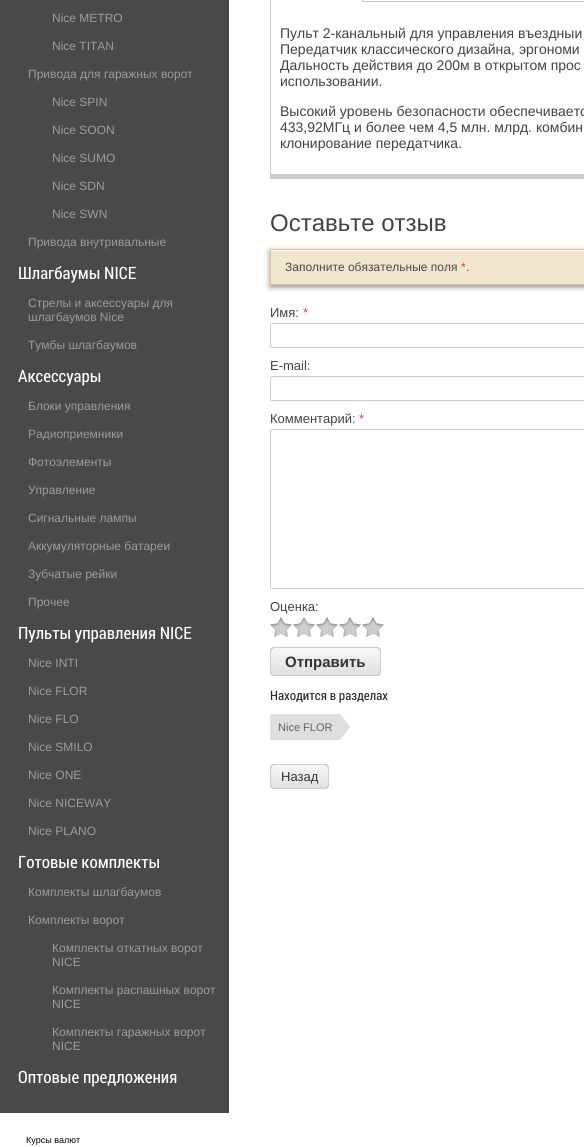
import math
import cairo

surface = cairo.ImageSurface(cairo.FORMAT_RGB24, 584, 1147)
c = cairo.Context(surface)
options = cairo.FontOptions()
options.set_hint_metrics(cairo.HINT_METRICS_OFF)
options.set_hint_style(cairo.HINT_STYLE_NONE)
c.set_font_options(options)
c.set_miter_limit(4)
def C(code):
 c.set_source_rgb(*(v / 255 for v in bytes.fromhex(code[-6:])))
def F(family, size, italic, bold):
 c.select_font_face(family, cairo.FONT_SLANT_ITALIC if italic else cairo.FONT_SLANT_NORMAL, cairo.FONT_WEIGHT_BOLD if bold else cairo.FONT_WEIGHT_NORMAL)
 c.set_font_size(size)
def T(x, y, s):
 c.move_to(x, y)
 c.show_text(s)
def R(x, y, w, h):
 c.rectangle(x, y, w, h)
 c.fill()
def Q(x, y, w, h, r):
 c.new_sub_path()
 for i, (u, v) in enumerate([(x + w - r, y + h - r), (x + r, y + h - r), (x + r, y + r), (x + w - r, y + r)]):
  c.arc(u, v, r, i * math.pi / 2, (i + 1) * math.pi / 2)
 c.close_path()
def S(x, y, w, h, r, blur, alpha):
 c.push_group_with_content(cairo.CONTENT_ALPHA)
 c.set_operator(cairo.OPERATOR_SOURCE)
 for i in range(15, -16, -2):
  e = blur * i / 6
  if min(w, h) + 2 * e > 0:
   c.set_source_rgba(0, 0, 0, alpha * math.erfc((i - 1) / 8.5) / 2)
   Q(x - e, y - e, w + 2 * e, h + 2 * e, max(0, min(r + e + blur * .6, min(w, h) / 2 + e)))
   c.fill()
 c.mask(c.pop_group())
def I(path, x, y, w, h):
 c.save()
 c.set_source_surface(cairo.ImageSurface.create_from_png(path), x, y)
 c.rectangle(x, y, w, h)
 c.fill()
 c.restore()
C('ffffff')
c.paint()
C('494949')
R(0,0,229,1113)
F('Liberation Sans',12,0,0)
C('9c9c9c')
T(52,22,'Nice METRO')
T(52,50,'Nice TITAN')
T(28,78,'Привода для гаражных ворот')
T(52,106,'Nice SPIN')
T(52,134,'Nice SOON')
T(52,162,'Nice SUMO')
T(52,190,'Nice SDN')
T(52,218,'Nice SWN')
T(28,246,'Привода внутривальные')
F('Roboto Condensed',17,0,0)
C('ffffff')
T(18,279,'Шлагбаумы NICE')
F('Liberation Sans',12,0,0)
C('9c9c9c')
T(28,307,'Стрелы и аксессуары для')
T(28,321,'шлагбаумов Nice')
T(28,349,'Тумбы шлагбаумов')
F('Roboto Condensed',17,0,0)
C('ffffff')
T(18,382,'Аксессуары')
F('Liberation Sans',12,0,0)
C('9c9c9c')
T(28,410,'Блоки управления')
T(28,438,'Радиоприемники')
T(28,466,'Фотоэлементы')
T(28,494,'Управление')
T(28,522,'Сигнальные лампы')
T(28,550,'Аккумуляторные батареи')
T(28,578,'Зубчатые рейки')
T(28,606,'Прочее')
F('Roboto Condensed',17,0,0)
C('ffffff')
T(18,639,'Пульты управления NICE')
F('Liberation Sans',12,0,0)
C('9c9c9c')
T(28,667,'Nice INTI')
T(28,695,'Nice FLOR')
T(28,723,'Nice FLO')
T(28,751,'Nice SMILO')
T(28,779,'Nice ONE')
T(28,807,'Nice NICEWAY')
T(28,835,'Nice PLANO')
F('Roboto Condensed',17,0,0)
C('ffffff')
T(18,868,'Готовые комплекты')
F('Liberation Sans',12,0,0)
C('9c9c9c')
T(28,896,'Комплекты шлагбаумов')
T(28,924,'Комплекты ворот')
T(52,952,'Комплекты откатных ворот')
T(52,966,'NICE')
T(52,994,'Комплекты распашных ворот')
T(52,1008,'NICE')
T(52,1036,'Комплекты гаражных ворот')
T(52,1050,'NICE')
F('Roboto Condensed',17,0,0)
C('ffffff')
T(18,1083,'Оптовые предложения')
F('Liberation Sans',9,0,0)
C('000000')
T(26,1143,'Курсы валют')
C('cccccc')
R(270,174,314,5)
R(270,1,1,178)
C('ffffff')
R(270,1,1,1)
C('cccccc')
c.set_fill_rule(cairo.FILL_RULE_EVEN_ODD)
c.new_path()
c.move_to(274,-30)
c.line_to(359,-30)
c.curve_to(361,-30,363,-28,363,-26)
c.line_to(363,2)
c.line_to(270,2)
c.line_to(270,-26)
c.curve_to(270,-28,272,-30,274,-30)
c.close_path()
c.move_to(274,-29)
c.line_to(359,-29)
c.curve_to(361,-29,362,-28,362,-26)
c.line_to(362,2)
c.line_to(271,2)
c.line_to(271,-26)
c.curve_to(271,-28,272,-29,274,-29)
c.close_path()
c.fill()
R(363,1,221,1)
F('Liberation Sans',14,0,0)
C('444242')
T(280,38,'Пульт 2-канальный для управления въездныи')
T(280,54,'Передатчик классического дизайна, эргономи')
T(280,70,'Дальность действия до 200м в открытом прос')
T(280,86,'использовании.')
T(280,116,'Высокий уровень безопасности обеспечиваетс')
T(280,132,'433,92МГц и более чем 4,5 млн. млрд. комбин')
T(280,148,'клонирование передатчика.')
F('Liberation Sans',24,0,0)
T(270,231,'Оставьте отзыв')
C('000000')
S(270,251,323,36,0,3,.45)
C('f2e6cf')
R(271,251,313,33)
C('fdfbf7')
R(271,250,313,1)
c.rectangle(270.5,249.5,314,35)
C('e1c893')
c.set_line_width(1)
c.stroke()
F('Liberation Sans',12,0,0)
C('494949')
T(285,271,'Заполните обязательные поля')
C('eb3c3c')
T(461,271,'*')
C('494949')
T(466,271,'.')
F('Liberation Sans',13,0,0)
C('444242')
T(270,317,'Имя:')
C('eb3c3c')
T(303,317,'*')
Q(270.5,323.5,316,24,1.5)
C('cccccc')
c.stroke()
C('444242')
T(270,370,'E-mail:')
Q(270.5,376.5,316,24,1.5)
C('cccccc')
c.stroke()
C('444242')
T(270,423,'Комментарий:')
C('eb3c3c')
T(359,423,'*')
Q(270.5,429.5,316,159,1.5)
C('cccccc')
c.stroke()
C('444242')
T(270,611,'Оценка:')
I('1.png',270,617,114,20)
gradient = cairo.LinearGradient(326,647,326,676)
gradient.add_color_stop_rgba(0,0.973,0.973,0.973,1)
gradient.add_color_stop_rgba(1,0.875,0.875,0.875,1)
c.set_source(gradient)
Q(270,647,111,29,4)
c.fill()
C('cccccc')
c.set_fill_rule(cairo.FILL_RULE_WINDING)
c.new_path()
c.move_to(272,648)
c.curve_to(271,648,270,650,270,651)
c.line_to(270,672)
c.curve_to(270,674,272,676,274,676)
c.line_to(377,676)
c.curve_to(378,676,380,675,380,674)
c.line_to(378,675)
c.line_to(275,675)
c.curve_to(269,675,271,664,271,660)
c.curve_to(271,657,270,650,272,648)
c.close_path()
c.fill()
c.new_path()
c.move_to(273,648)
c.line_to(376,648)
c.curve_to(378,648,380,650,380,652)
c.line_to(380,673)
c.line_to(379,675)
c.curve_to(380,675,381,673,381,672)
c.line_to(381,651)
c.curve_to(381,649,379,647,377,647)
c.line_to(274,647)
c.curve_to(273,647,271,648,271,649)
c.close_path()
c.fill()
c.new_path()
c.move_to(271,674)
c.curve_to(271,675,273,676,274,676)
c.line_to(377,676)
c.curve_to(379,676,381,674,381,672)
c.line_to(381,651)
c.curve_to(381,650,380,648,379,648)
c.curve_to(381,650,380,657,380,660)
c.curve_to(380,664,382,675,376,675)
c.line_to(273,675)
c.close_path()
c.fill()
c.new_path()
c.move_to(275,648)
c.line_to(378,648)
c.line_to(380,649)
c.curve_to(380,648,378,647,377,647)
c.line_to(274,647)
c.curve_to(272,647,270,649,270,651)
c.line_to(270,672)
c.curve_to(270,673,271,675,272,675)
c.curve_to(270,673,271,666,271,662)
c.curve_to(271,659,269,648,275,648)
c.close_path()
c.fill()
F('Liberation Sans',15,0,1)
C('333333')
T(285,667,'Отправить')
F('Roboto Condensed',13,0,0)
C('2a2a2a')
T(270,700,'Находится в разделах')
C('dedede')
R(270,714,70,26)
F('Liberation Sans',11,0,0)
C('626262')
T(278,731,'Nice FLOR')
C('dedede')
c.new_path()
c.move_to(340,740)
c.line_to(340,714)
c.line_to(350,727)
c.close_path()
c.fill()
gradient = cairo.LinearGradient(300,764,300,789)
gradient.add_color_stop_rgba(0,0.973,0.973,0.973,1)
gradient.add_color_stop_rgba(1,0.875,0.875,0.875,1)
c.set_source(gradient)
Q(270,764,59,25,4)
c.fill()
C('cccccc')
c.new_path()
c.move_to(272,765)
c.curve_to(271,765,270,767,270,768)
c.line_to(270,785)
c.curve_to(270,787,272,789,274,789)
c.line_to(325,789)
c.curve_to(326,789,328,788,328,787)
c.line_to(326,788)
c.line_to(275,788)
c.curve_to(273,788,271,786,271,784)
c.line_to(271,767)
c.close_path()
c.fill()
c.new_path()
c.move_to(273,765)
c.line_to(324,765)
c.curve_to(326,765,328,767,328,769)
c.line_to(328,786)
c.line_to(327,788)
c.curve_to(328,788,329,786,329,785)
c.line_to(329,768)
c.curve_to(329,766,327,764,325,764)
c.line_to(274,764)
c.curve_to(273,764,271,765,271,766)
c.close_path()
c.fill()
c.new_path()
c.move_to(271,787)
c.curve_to(271,788,273,789,274,789)
c.line_to(325,789)
c.curve_to(327,789,329,787,329,785)
c.line_to(329,768)
c.curve_to(329,767,328,765,327,765)
c.line_to(328,767)
c.line_to(328,784)
c.curve_to(328,786,326,788,324,788)
c.line_to(273,788)
c.close_path()
c.fill()
c.new_path()
c.move_to(275,765)
c.line_to(326,765)
c.line_to(328,766)
c.curve_to(328,765,326,764,325,764)
c.line_to(274,764)
c.curve_to(272,764,270,766,270,768)
c.line_to(270,785)
c.curve_to(270,786,271,788,272,788)
c.curve_to(270,786,271,780,271,778)
c.curve_to(271,774,269,765,275,765)
c.close_path()
c.fill()
F('Liberation Sans',13,0,0)
C('333333')
T(281,781,'Назад')
surface.write_to_png('o.png')
